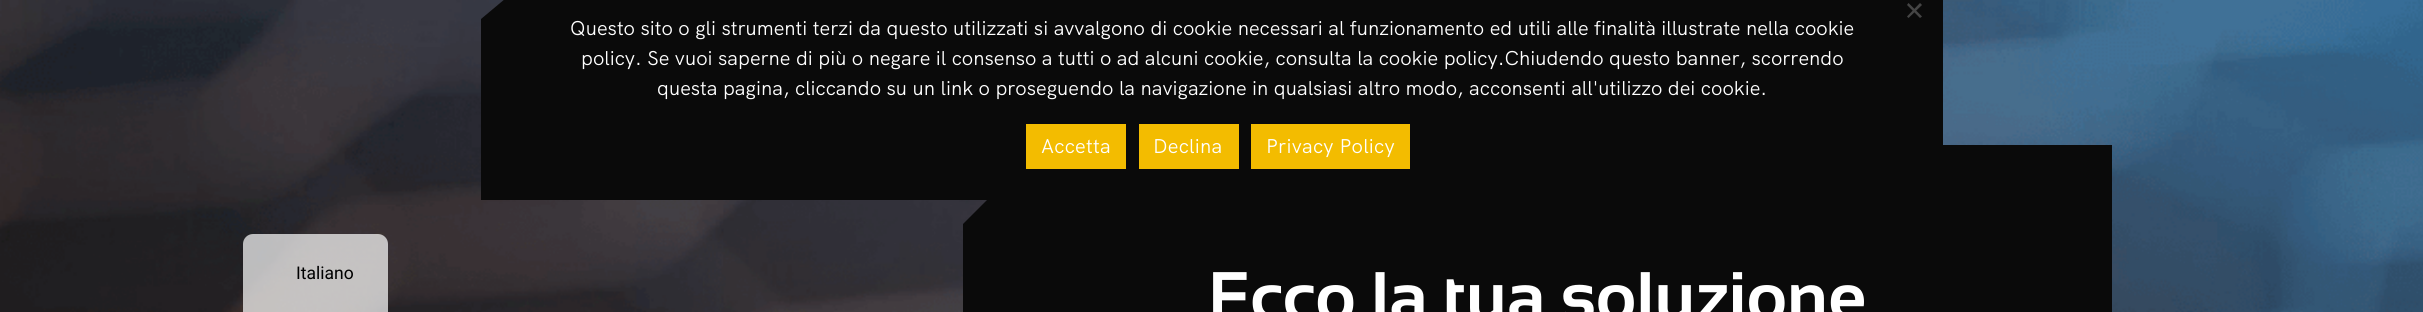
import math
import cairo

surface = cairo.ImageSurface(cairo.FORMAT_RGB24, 2423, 312)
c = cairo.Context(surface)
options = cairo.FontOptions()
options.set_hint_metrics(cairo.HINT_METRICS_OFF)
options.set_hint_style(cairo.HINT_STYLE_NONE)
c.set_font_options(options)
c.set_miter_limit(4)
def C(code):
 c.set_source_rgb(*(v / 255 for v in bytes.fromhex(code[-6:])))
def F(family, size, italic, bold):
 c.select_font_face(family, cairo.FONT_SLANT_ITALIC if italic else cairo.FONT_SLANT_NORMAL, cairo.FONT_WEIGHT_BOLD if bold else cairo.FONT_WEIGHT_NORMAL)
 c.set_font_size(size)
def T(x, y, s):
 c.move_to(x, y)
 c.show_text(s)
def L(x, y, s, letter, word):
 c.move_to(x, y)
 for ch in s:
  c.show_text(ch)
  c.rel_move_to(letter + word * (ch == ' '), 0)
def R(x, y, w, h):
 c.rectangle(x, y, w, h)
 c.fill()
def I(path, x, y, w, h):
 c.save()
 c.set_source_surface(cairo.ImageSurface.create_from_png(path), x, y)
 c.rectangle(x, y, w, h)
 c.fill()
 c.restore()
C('ffffff')
c.paint()
I('1.png',0,0,2423,312)
C('0a0a0a')
c.new_path()
c.move_to(963,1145)
c.line_to(2112,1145)
c.line_to(2112,145)
c.line_to(1042,145)
c.line_to(963,224)
c.close_path()
c.fill()
c.new_path()
c.move_to(481,200)
c.line_to(1899,200)
c.line_to(1943,163)
c.line_to(1943,-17)
c.line_to(524,-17)
c.line_to(481,19)
c.close_path()
c.fill()
C('454545')
c.new_path()
c.move_to(1920,3)
c.line_to(1922,5)
c.line_to(1908.5,18)
c.line_to(1907,16.5)
c.close_path()
c.fill()
c.new_path()
c.move_to(1907,5)
c.line_to(1908.5,3)
c.line_to(1922,16.5)
c.line_to(1920,18)
c.close_path()
c.fill()
F('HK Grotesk',20,0,0)
C('ffffff')
T(570,35,'Questo sito o gli strumenti terzi da questo utilizzati si avvalgono di cookie necessari al funzionamento ed utili alle finalità illustrate nella cookie')
T(581,65,'policy. Se vuoi saperne di più o negare il consenso a tutti o ad alcuni cookie, consulta la cookie policy.Chiudendo questo banner, scorrendo')
T(657,95,'questa pagina, cliccando su un link o proseguendo la navigazione in qualsiasi altro modo, acconsenti all\'utilizzo dei cookie.')
C('f3bc00')
R(1026,124,100,45)
C('ffffff')
L(1041,153,'Accetta',.25,0)
C('f3bc00')
R(1139,124,100,45)
C('ffffff')
L(1153,153,'Declina',.25,0)
C('f3bc00')
R(1251,124,159,45)
C('ffffff')
L(1266,153,'Privacy Policy',.25,0)
c.set_source_rgba(1,1,1,0.7)
c.new_path()
c.move_to(253,234)
c.line_to(378,234)
c.curve_to(383.5,234,388,238.5,388,244)
c.line_to(388,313)
c.line_to(243,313)
c.line_to(243,244)
c.curve_to(243,238.5,247.5,234,253,234)
c.close_path()
c.fill()
F('Roboto',17.5,0,0)
C('000000')
T(296,279,'Italiano')
F('Sansation',70,0,1)
C('ffffff')
T(1208,321,'Ecco la tua soluzione')
surface.write_to_png('o.png')
